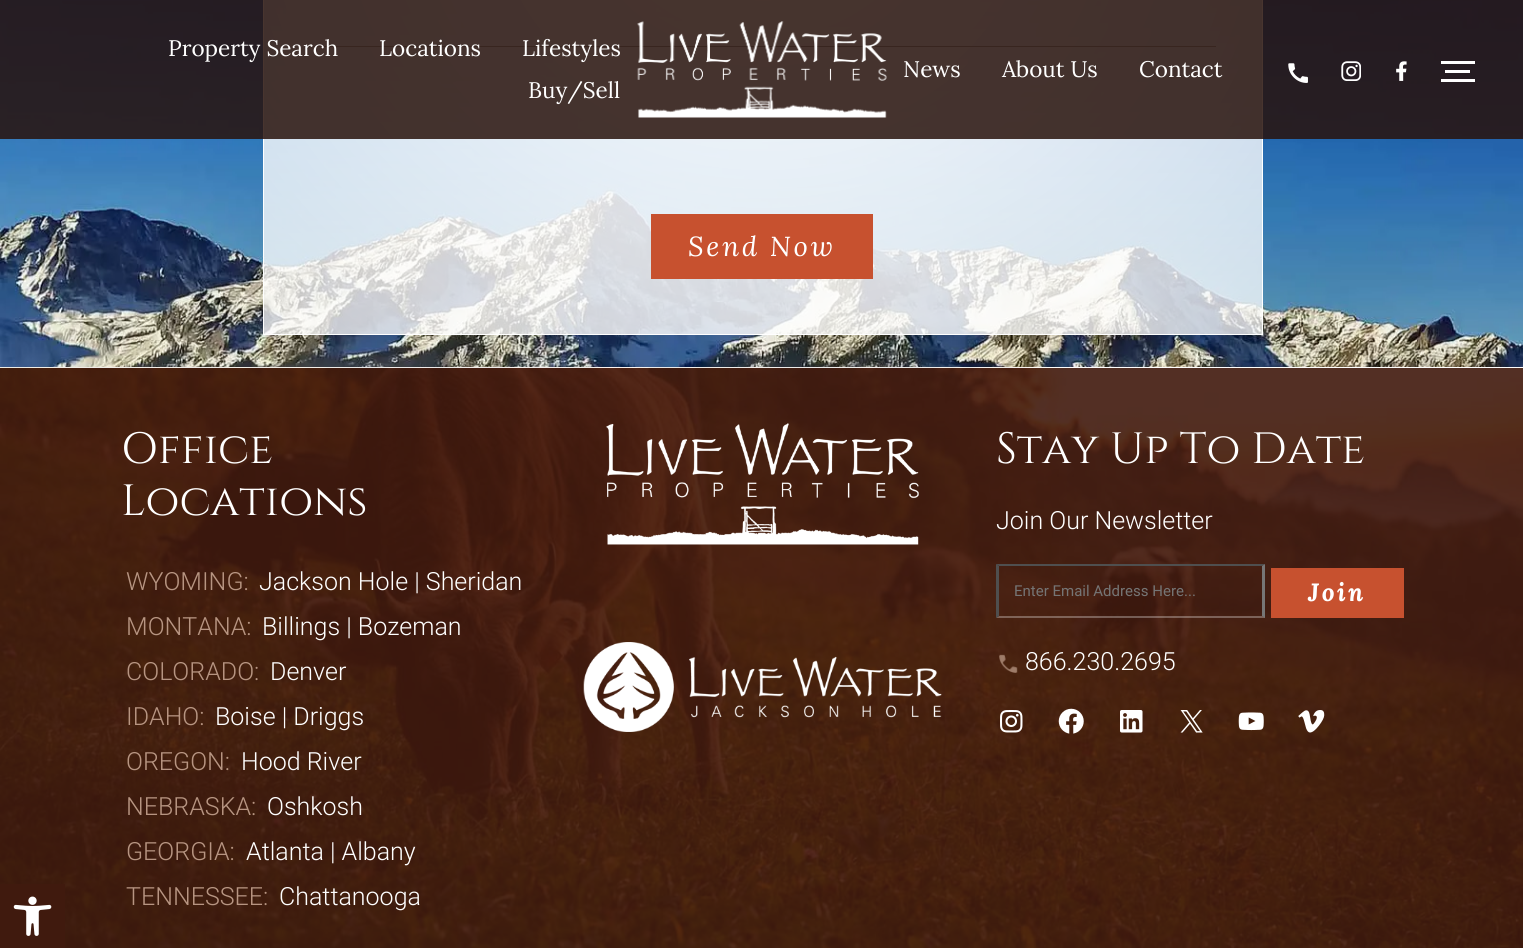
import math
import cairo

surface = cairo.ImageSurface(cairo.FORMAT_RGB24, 1523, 948)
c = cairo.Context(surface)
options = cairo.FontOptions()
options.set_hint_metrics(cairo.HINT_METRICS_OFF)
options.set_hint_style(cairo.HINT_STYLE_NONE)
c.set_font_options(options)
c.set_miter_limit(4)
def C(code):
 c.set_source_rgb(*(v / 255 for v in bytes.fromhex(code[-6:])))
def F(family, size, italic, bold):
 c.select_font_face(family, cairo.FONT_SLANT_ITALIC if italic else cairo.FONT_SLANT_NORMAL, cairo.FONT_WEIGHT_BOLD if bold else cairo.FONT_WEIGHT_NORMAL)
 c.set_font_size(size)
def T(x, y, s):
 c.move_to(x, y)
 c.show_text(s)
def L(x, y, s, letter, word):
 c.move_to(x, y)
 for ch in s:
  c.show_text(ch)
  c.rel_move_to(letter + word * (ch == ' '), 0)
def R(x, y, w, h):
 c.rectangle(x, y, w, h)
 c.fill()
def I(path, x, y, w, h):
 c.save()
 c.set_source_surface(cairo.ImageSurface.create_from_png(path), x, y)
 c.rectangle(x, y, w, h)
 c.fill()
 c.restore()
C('ffffff')
c.paint()
C('401a0e')
R(0,368,1523,580)
I('7.png',0,367,1523,581)
R(0,884,65,64)
I('1.png',13,896,39,40)
I('6.png',0,0,1523,367)
c.rectangle(263.5,-.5,999,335)
C('ffffff')
c.set_line_width(1)
c.stroke()
C('939393')
R(309,46,907,1)
c.set_source_rgba(0.157,0.071,0.043,0.85)
R(0,0,1523,139)
F('Lora',22.5,0,0)
C('ffffff')
T(168,56,'Property Search')
T(379,56,'Locations')
T(522,56,'Lifestyles')
T(528,98,'Buy/Sell')
I('2.png',637,21,250,97)
T(903,77,'News')
T(1002,77,'About Us')
T(1139,77,'Contact')
I('3.png',1288,63,20,20)
I('4.png',1341,61,20,20)
I('5.png',1396,61,11,20)
R(1441,61,34,3)
R(1445,70,25,3)
R(1441,79,34,3)
C('c7512f')
R(651,214,222,65)
F('Lora',27.5,1,0)
C('ffffff')
L(688,256,'Send Now',2.75,0)
F('Cinzel',43.75,0,0)
T(121,463,'Office')
T(121,515,'Locations')
F('Roboto Light',25,0,0)
C('b79582')
T(126,590,'WYOMING:')
C('ffffff')
T(259,590,'Jackson Hole | Sheridan')
C('b79582')
T(126,635,'MONTANA:')
C('ffffff')
T(262,635,'Billings | Bozeman')
C('b79582')
T(126,680,'COLORADO:')
C('ffffff')
T(270,680,'Denver')
C('b79582')
T(126,725,'IDAHO:')
C('ffffff')
T(215,725,'Boise | Driggs')
C('b79582')
T(126,770,'OREGON:')
C('ffffff')
T(241,770,'Hood River')
C('b79582')
T(126,815,'NEBRASKA:')
C('ffffff')
T(267,815,'Oshkosh')
C('b79582')
T(126,860,'GEORGIA:')
C('ffffff')
T(246,860,'Atlanta | Albany')
C('b79582')
T(126,905,'TENNESSEE:')
C('ffffff')
T(279,905,'Chattanooga')
I('8.png',606,423,313,122)
I('9.png',583,642,359,90)
F('Cinzel',43.75,0,0)
T(996,463,'Stay Up To Date')
F('Roboto Light',25,0,0)
T(996,529,'Join Our Newsletter')
C('4f4f4f')
c.new_path()
c.move_to(996,564)
c.line_to(1265,564)
c.line_to(1262,566)
c.line_to(999,566)
c.close_path()
c.fill()
C('767676')
c.new_path()
c.move_to(1265,564)
c.line_to(1265,618)
c.line_to(1262,616)
c.line_to(1262,566)
c.close_path()
c.fill()
c.set_source_rgba(1,1,1,0.3)
c.new_path()
c.move_to(1265,618)
c.line_to(996,618)
c.line_to(999,616)
c.line_to(1262,616)
c.close_path()
c.fill()
C('4f4f4f')
c.new_path()
c.move_to(996,618)
c.line_to(996,564)
c.line_to(999,566)
c.line_to(999,616)
c.close_path()
c.fill()
F('Roboto',15,0,0)
C('757575')
T(1014,596,'Enter Email Address Here...')
C('c7512f')
R(1271,568,133,50)
F('Lora',25,1,1)
C('ffffff')
L(1308,601,'Join',2.5,0)
I('10.png',999,654,19,19)
F('Roboto Light',25,0,0)
T(1025,670,'866.230.2695')
I('11.png',1000,710,23,23)
I('12.png',1058,708,26,26)
I('13.png',1120,710,23,23)
I('14.png',1180,710,23,23)
I('15.png',1238,712,26,19)
I('16.png',1298,710,27,23)
surface.write_to_png('o.png')
